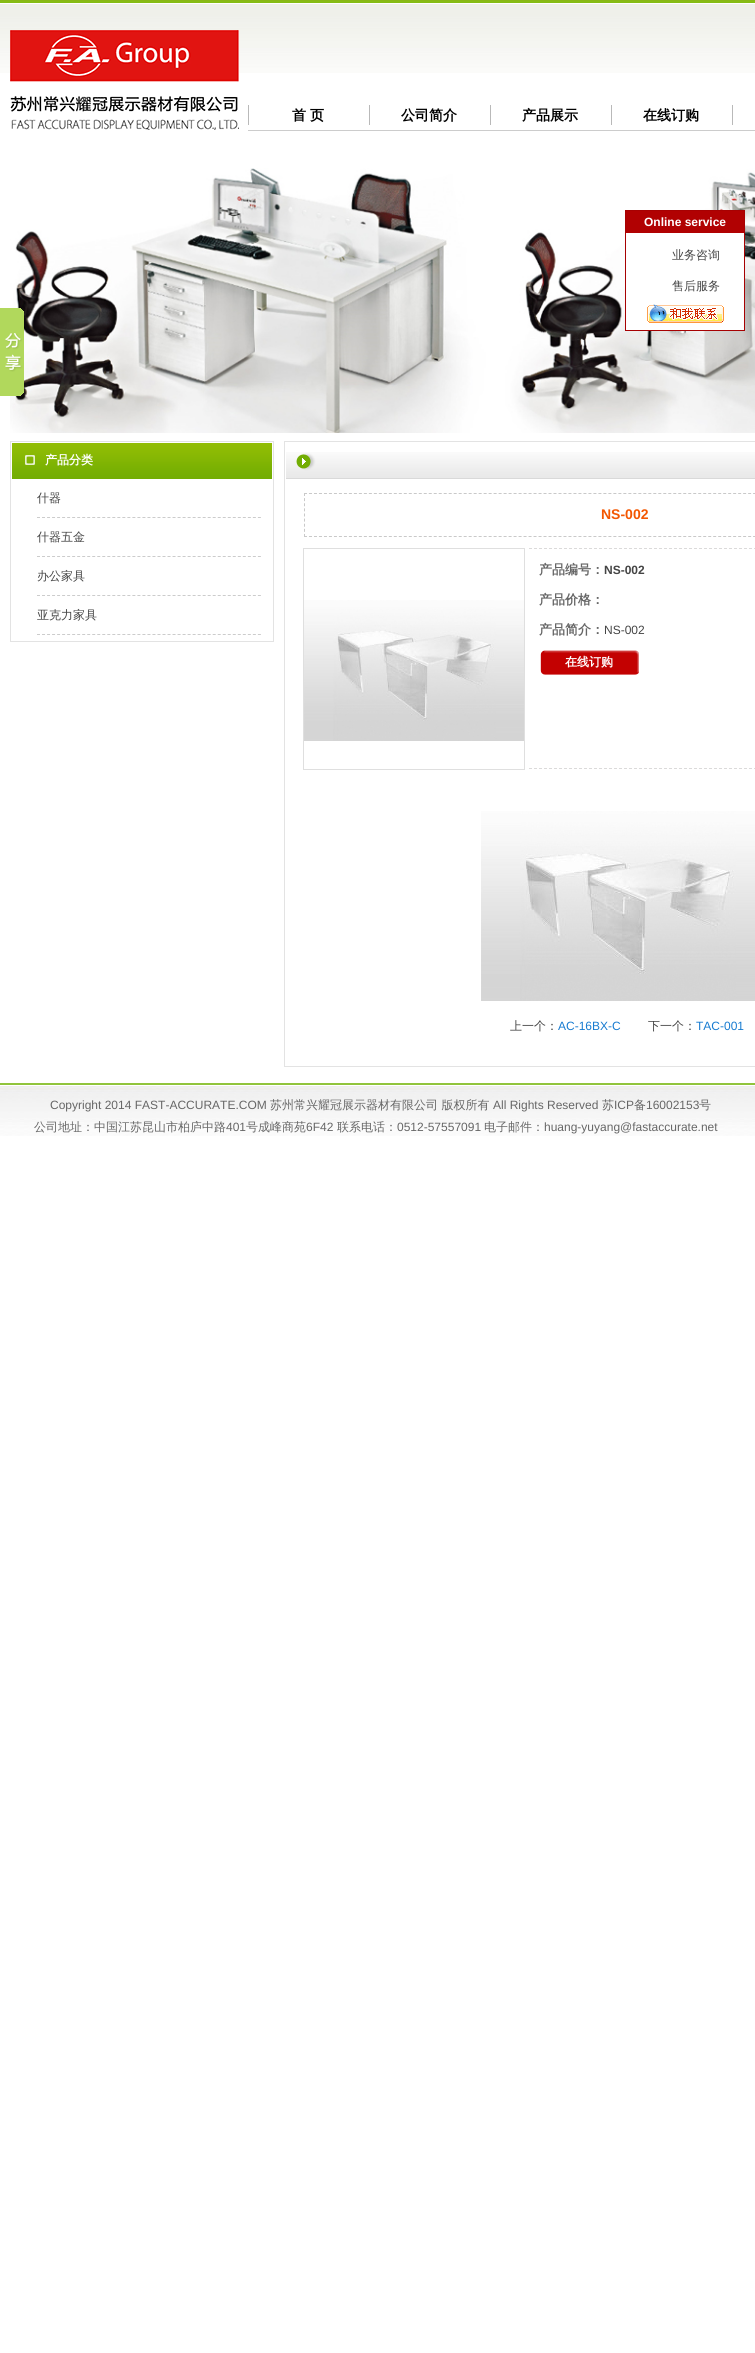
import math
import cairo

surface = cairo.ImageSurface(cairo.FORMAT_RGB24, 755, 2353)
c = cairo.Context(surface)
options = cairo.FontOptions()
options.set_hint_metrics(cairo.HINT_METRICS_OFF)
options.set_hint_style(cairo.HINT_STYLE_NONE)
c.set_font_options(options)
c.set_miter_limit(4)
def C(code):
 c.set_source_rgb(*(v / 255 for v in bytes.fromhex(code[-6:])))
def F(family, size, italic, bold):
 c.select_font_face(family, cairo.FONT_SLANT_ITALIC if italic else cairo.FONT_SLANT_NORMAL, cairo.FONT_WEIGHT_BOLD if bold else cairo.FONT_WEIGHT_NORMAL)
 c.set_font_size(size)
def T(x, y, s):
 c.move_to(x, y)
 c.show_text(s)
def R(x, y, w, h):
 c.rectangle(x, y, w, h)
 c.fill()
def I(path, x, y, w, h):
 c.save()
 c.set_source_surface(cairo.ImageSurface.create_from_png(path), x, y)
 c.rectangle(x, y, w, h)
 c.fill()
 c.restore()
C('ffffff')
c.paint()
I('1.png',0,0,755,73)
I('2.png',10,30,229,100)
C('b9b9b9')
R(248,105,1,20)
C('cccccc')
R(248,130,507,1)
F('WenQuanYi Zen Hei',14,0,1)
C('000000')
T(292,120,'首')
T(310,120,'页')
C('b9b9b9')
R(369,105,1,20)
C('000000')
T(401,120,'公司简介')
C('b9b9b9')
R(490,105,1,20)
C('000000')
T(522,120,'产品展示')
C('b9b9b9')
R(611,105,1,20)
C('000000')
T(643,120,'在线订购')
C('b9b9b9')
R(732,105,1,20)
I('3.png',10,168,745,265)
C('ffffff')
R(626,233,118,97)
c.rectangle(625.5,210.5,119,120)
C('a70102')
c.set_line_width(1)
c.stroke()
C('b10102')
R(626,211,118,22)
F('Liberation Sans',12,0,1)
C('ffffff')
T(644,226,'Online service')
F('WenQuanYi Zen Hei Medium',12,0,0)
C('444444')
T(672,259,'业务咨询')
T(672,290,'售后服务')
I('4.png',647,304,77,19)
I('5.png',0,308,24,88)
I('6.png',10,441,264,39)
F('WenQuanYi Zen Hei',12,0,1)
C('ffffff')
T(45,464,'产品分类')
C('e3e3e3')
R(273,480,1,162)
R(10,641,264,1)
R(10,480,1,162)
c.new_path()
c.move_to(37,517.5)
c.line_to(261,517.5)
C('cccccc')
c.set_dash([3,2.02])
c.stroke()
F('WenQuanYi Zen Hei Medium',12,0,0)
C('444444')
T(37,502,'什器')
c.new_path()
c.move_to(37,556.5)
c.line_to(261,556.5)
C('cccccc')
c.stroke()
C('444444')
T(37,541,'什器五金')
c.new_path()
c.move_to(37,595.5)
c.line_to(261,595.5)
C('cccccc')
c.stroke()
C('444444')
T(37,580,'办公家具')
c.new_path()
c.move_to(37,634.5)
c.line_to(261,634.5)
C('cccccc')
c.stroke()
C('444444')
T(37,619,'亚克力家具')
c.rectangle(284.5,441.5,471,625)
C('e3e3e3')
c.set_dash([])
c.stroke()
I('7.png',286,452,469,27)
c.new_path()
c.move_to(304,493.5)
c.line_to(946,493.5)
C('c9c9c9')
c.set_dash([3,1.99])
c.stroke()
c.new_path()
c.move_to(304,536.5)
c.line_to(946,536.5)
c.stroke()
c.new_path()
c.move_to(304.5,493)
c.line_to(304.5,537)
c.set_dash([3,2.12])
c.stroke()
F('Liberation Sans',14,0,1)
C('f35702')
T(601,519,'NS-002')
c.rectangle(303.5,548.5,221,221)
C('dfdfdf')
c.set_dash([])
c.stroke()
I('8.png',304,600,220,141)
c.new_path()
c.move_to(529,548.5)
c.line_to(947,548.5)
C('dbdada')
c.set_dash([3,2])
c.stroke()
c.new_path()
c.move_to(529,768.5)
c.line_to(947,768.5)
c.stroke()
F('WenQuanYi Zen Hei',13,0,1)
C('666666')
T(539,574,'产品编号：')
F('Liberation Sans',12,0,1)
C('444444')
T(604,574,'NS-002')
F('WenQuanYi Zen Hei',13,0,1)
C('666666')
T(539,604,'产品价格：')
T(539,634,'产品简介：')
F('Liberation Sans',12,0,0)
C('444444')
T(604,634,'NS-002')
I('9.png',540,650,99,25)
F('WenQuanYi Zen Hei',12,0,1)
C('ffffff')
T(565,666,'在线订购')
I('10.png',481,811,274,190)
F('WenQuanYi Zen Hei Medium',12,0,0)
C('444444')
T(510,1030,'上一个：')
F('Liberation Sans',12,0,0)
C('177bd0')
T(558,1030,'AC-16BX-C')
F('WenQuanYi Zen Hei Medium',12,0,0)
C('444444')
T(648,1030,'下一个：')
F('Liberation Sans',12,0,0)
C('177bd0')
T(696,1030,'TAC-001')
I('11.png',0,1086,755,50)
C('91c43c')
R(0,1083,755,2)
C('666666')
T(50,1109,'Copyright 2014 FAST-ACCURATE.COM')
F('WenQuanYi Zen Hei Medium',12,0,0)
T(270,1109,'苏州常兴耀冠展示器材有限公司 版权所有')
F('Liberation Sans',12,0,0)
T(493,1109,'All Rights Reserved')
F('WenQuanYi Zen Hei Medium',12,0,0)
T(602,1109,'苏')
F('Liberation Sans',12,0,0)
T(614,1109,'ICP')
F('WenQuanYi Zen Hei Medium',12,0,0)
T(634,1109,'备')
F('Liberation Sans',12,0,0)
T(646,1109,'16002153')
F('WenQuanYi Zen Hei Medium',12,0,0)
T(699,1109,'号')
T(34,1131,'公司地址：中国江苏昆山市柏庐中路')
F('Liberation Sans',12,0,0)
T(226,1131,'401')
F('WenQuanYi Zen Hei Medium',12,0,0)
T(246,1131,'号成峰商苑')
F('Liberation Sans',12,0,0)
T(306,1131,'6F42')
F('WenQuanYi Zen Hei Medium',12,0,0)
T(337,1131,'联系电话：')
F('Liberation Sans',12,0,0)
T(397,1131,'0512-57557091')
F('WenQuanYi Zen Hei Medium',12,0,0)
T(484,1131,'电子邮件：')
F('Liberation Sans',12,0,0)
T(544,1131,'huang-yuyang@fastaccurate.net')
surface.write_to_png('o.png')
